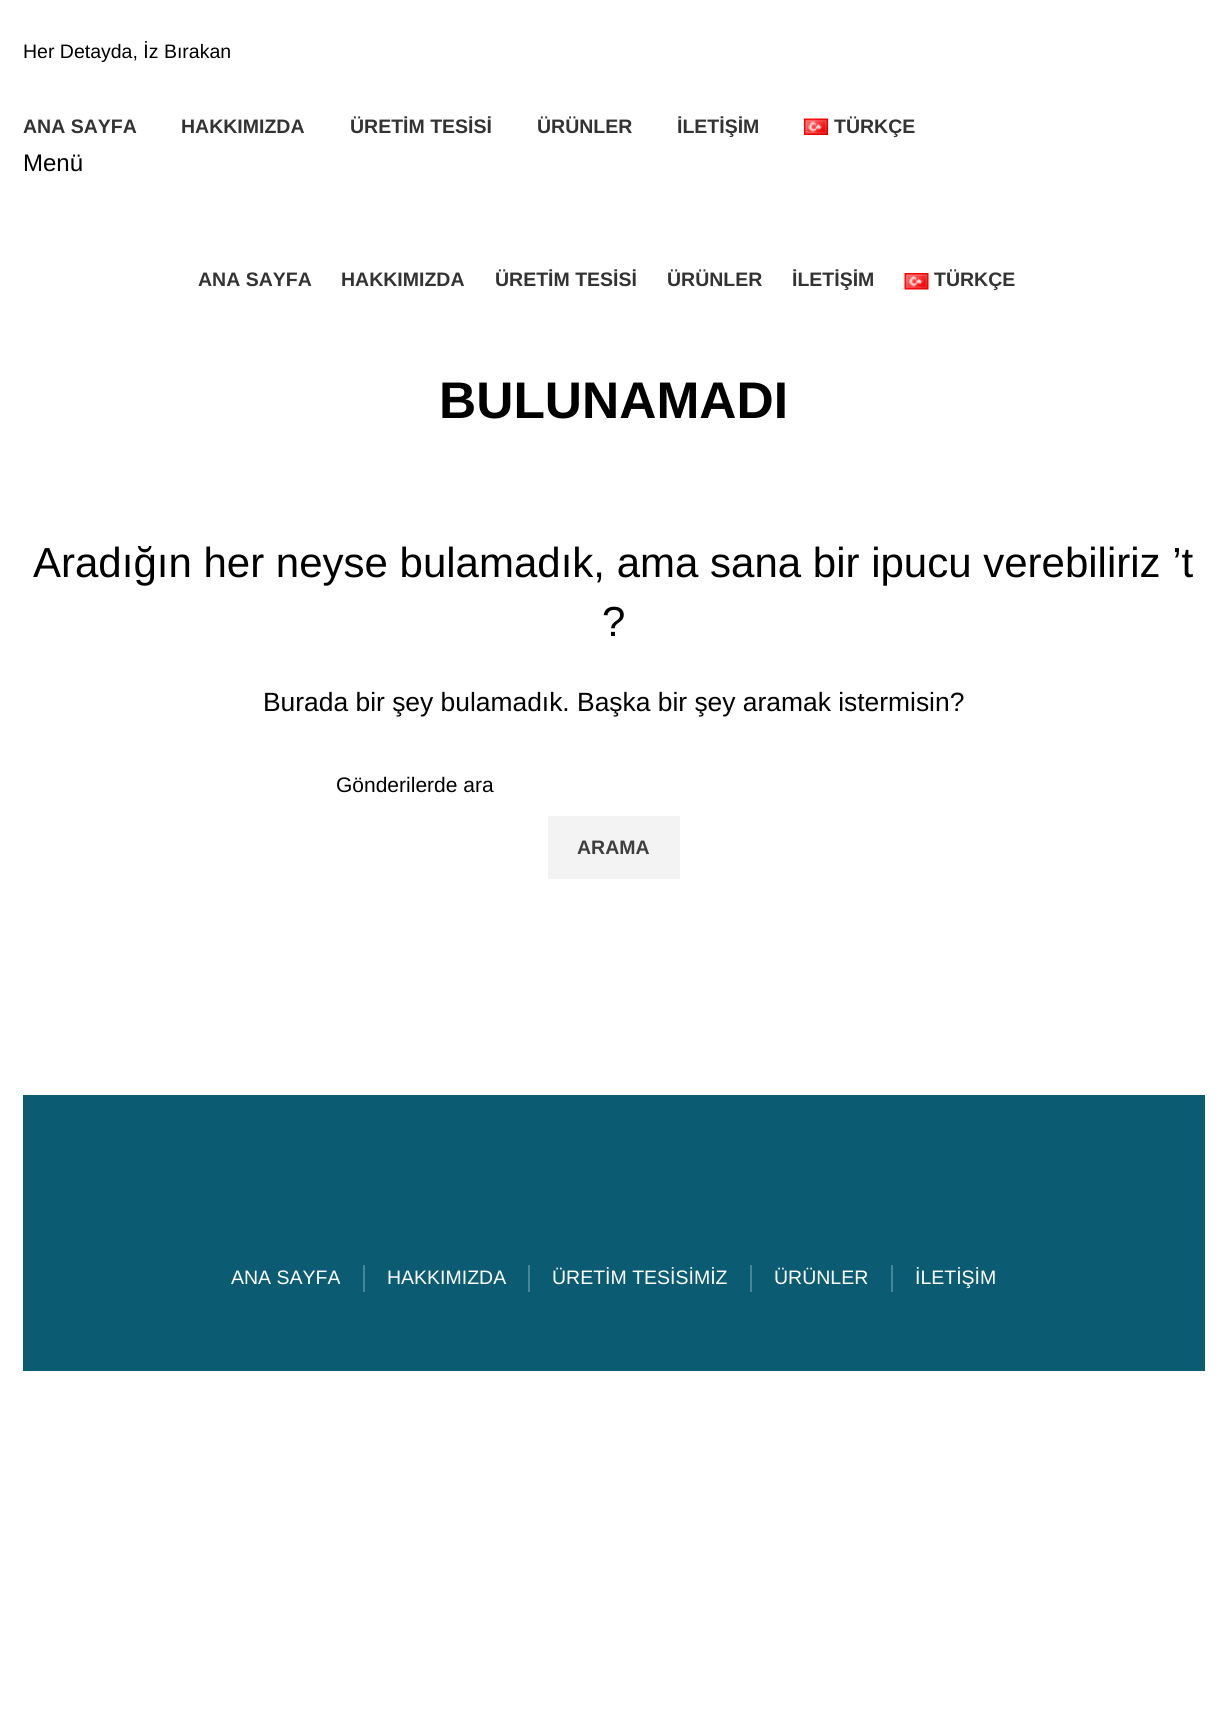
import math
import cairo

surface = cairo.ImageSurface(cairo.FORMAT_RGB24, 1226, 1715)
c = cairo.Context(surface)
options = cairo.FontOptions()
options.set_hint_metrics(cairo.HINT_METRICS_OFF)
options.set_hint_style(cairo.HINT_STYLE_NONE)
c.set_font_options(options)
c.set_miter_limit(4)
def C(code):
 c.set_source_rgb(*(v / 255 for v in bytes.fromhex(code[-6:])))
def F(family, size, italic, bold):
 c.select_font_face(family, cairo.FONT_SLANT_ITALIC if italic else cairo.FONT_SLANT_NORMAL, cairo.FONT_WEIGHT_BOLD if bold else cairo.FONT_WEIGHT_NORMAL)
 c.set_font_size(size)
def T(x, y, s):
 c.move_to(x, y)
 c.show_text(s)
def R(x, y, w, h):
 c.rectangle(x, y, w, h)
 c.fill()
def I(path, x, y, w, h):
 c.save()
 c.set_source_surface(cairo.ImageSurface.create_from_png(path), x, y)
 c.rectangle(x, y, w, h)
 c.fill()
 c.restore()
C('ffffff')
c.paint()
F('Liberation Sans',19.5,0,0)
C('000000')
T(23,58,'Her Detayda, İz Bırakan')
F('Liberation Sans',19.5,0,1)
C('333333')
T(23,133,'ANA SAYFA')
T(181,133,'HAKKIMIZDA')
T(350,133,'ÜRETİM TESİSİ')
T(537,133,'ÜRÜNLER')
T(677,133,'İLETİŞİM')
I('1.png',804,118,24,17)
T(834,133,'TÜRKÇE')
F('Liberation Sans',24,0,0)
C('000000')
T(23,171,'Menü')
F('Liberation Sans',19.5,0,1)
C('333333')
T(198,286,'ANA SAYFA')
T(341,286,'HAKKIMIZDA')
T(495,286,'ÜRETİM TESİSİ')
T(667,286,'ÜRÜNLER')
T(792,286,'İLETİŞİM')
I('2.png',904,273,25,17)
T(934,286,'TÜRKÇE')
F('Liberation Sans',51.5,0,1)
C('000000')
T(439,418,'BULUNAMADI')
F('Liberation Sans',42,0,0)
T(33,577,'Aradığın her neyse bulamadık, ama sana bir ipucu verebiliriz ’t')
T(602,636,'?')
F('Liberation Sans',26.4,0,0)
T(263,711,'Burada bir şey bulamadık. Başka bir şey aramak istermisin?')
F('Liberation Sans',21,0,0)
T(336,792,'Gönderilerde ara')
C('f3f3f3')
R(548,816,132,63)
F('Liberation Sans',19.5,0,1)
C('3e3e3e')
T(577,854,'ARAMA')
C('0b5c72')
R(23,1095,1182,276)
F('Liberation Sans',19.5,0,0)
C('ffffff')
T(231,1284,'ANA SAYFA')
C('488595')
R(363,1265,2,27)
C('ffffff')
T(387,1284,'HAKKIMIZDA')
C('488595')
R(528,1265,2,27)
C('ffffff')
T(552,1284,'ÜRETİM TESİSİMİZ')
C('488595')
R(750,1265,2,27)
C('ffffff')
T(774,1284,'ÜRÜNLER')
C('488595')
R(891,1265,2,27)
C('ffffff')
T(915,1284,'İLETİŞİM')
surface.write_to_png('o.png')
